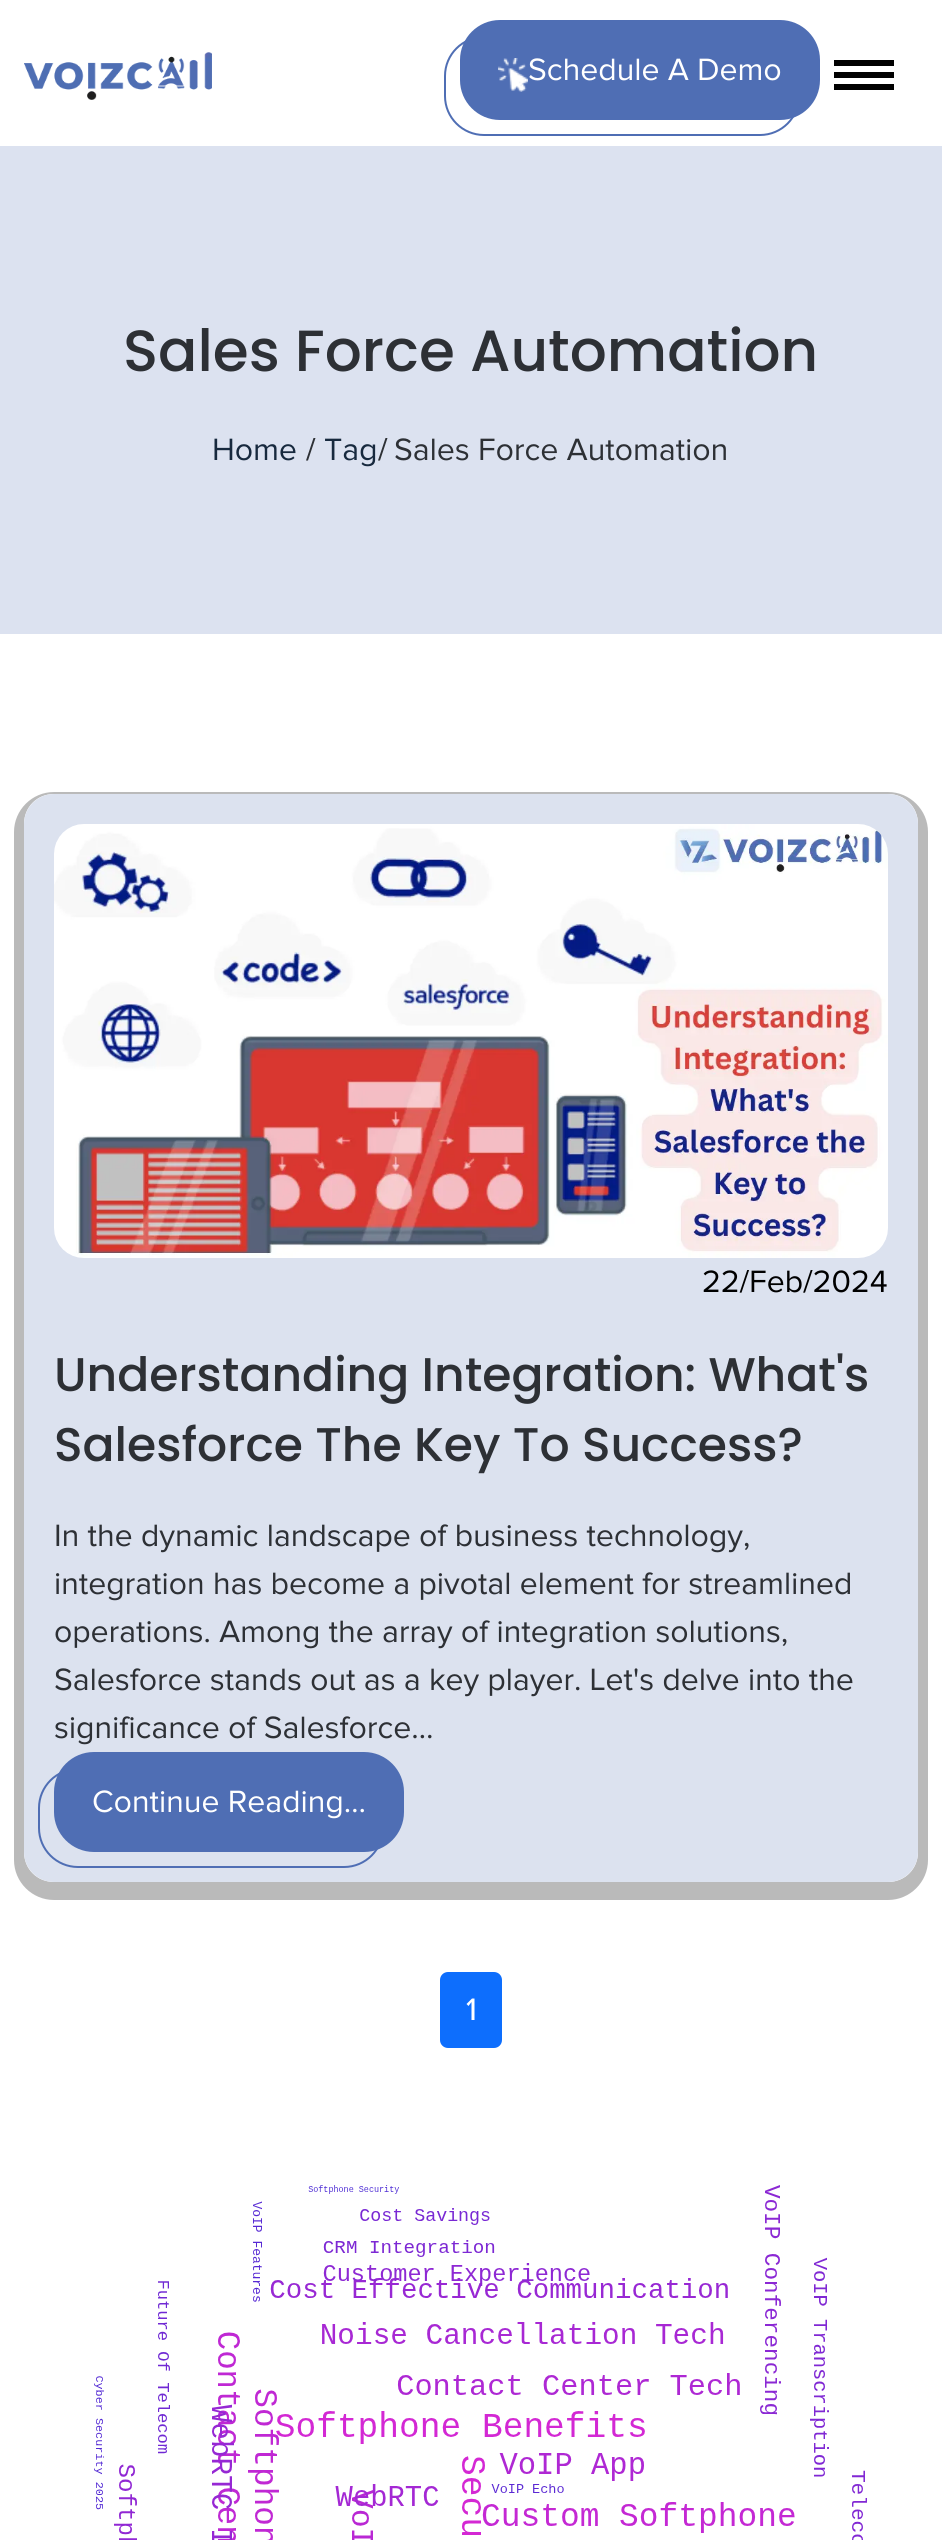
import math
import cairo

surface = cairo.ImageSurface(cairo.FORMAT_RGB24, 942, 2540)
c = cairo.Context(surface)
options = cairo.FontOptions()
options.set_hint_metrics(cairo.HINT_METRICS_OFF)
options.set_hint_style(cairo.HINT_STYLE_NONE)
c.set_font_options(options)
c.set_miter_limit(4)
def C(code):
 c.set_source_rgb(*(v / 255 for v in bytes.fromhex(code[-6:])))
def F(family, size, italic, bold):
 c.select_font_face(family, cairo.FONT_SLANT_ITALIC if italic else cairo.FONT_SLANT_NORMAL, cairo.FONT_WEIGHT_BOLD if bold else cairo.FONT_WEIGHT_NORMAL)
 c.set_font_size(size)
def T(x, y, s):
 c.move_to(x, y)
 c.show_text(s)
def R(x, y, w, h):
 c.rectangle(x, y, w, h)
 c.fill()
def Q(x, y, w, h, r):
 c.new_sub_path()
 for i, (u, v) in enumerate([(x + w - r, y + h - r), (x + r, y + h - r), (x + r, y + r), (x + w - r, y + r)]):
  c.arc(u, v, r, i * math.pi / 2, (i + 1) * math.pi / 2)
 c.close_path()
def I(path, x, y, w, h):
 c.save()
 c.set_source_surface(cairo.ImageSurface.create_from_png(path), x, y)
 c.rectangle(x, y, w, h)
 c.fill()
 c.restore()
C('ffffff')
c.paint()
I('1.png',24,52,188,48)
C('4f6eb4')
Q(460,20,360,100,40)
c.fill()
I('2.png',498,58,30,34)
I('3.png',529,58,252,23)
Q(445,37,354,98,39)
c.stroke()
C('000000')
R(834,72,60,6)
R(834,60,60,6)
R(834,84,60,6)
C('dce2f0')
R(0,146,942,488)
F('Poppins Medium',58.1,0,0)
C('2d3035')
T(123,371,'Sales Force Automation')
I('4.png',214,438,82,23)
c.new_path()
c.move_to(308,460.5)
c.line_to(306,460.5)
c.line_to(313.5,438)
c.line_to(315.5,438)
c.close_path()
c.fill()
I('5.png',325,438,51,29)
c.new_path()
c.move_to(380,460.5)
c.line_to(378,460.5)
c.line_to(385.5,438)
c.line_to(387.5,438)
c.close_path()
c.fill()
I('6.png',395,438,331,23)
C('bababa')
c.set_fill_rule(cairo.FILL_RULE_EVEN_ODD)
c.new_path()
c.move_to(54,792)
c.curve_to(32,792,14,810,14,832)
c.line_to(14,1860)
c.curve_to(14,1882,32,1900,54,1900)
c.line_to(888,1900)
c.curve_to(910,1900,928,1882,928,1860)
c.line_to(928,832)
c.curve_to(928,810,910,792,888,792)
c.close_path()
c.move_to(54,794)
c.curve_to(37,794,24,807,24,824)
c.line_to(24,1852)
c.curve_to(24,1869,37,1882,54,1882)
c.line_to(888,1882)
c.curve_to(905,1882,918,1869,918,1852)
c.line_to(918,824)
c.curve_to(918,807,905,794,888,794)
c.close_path()
c.fill()
C('dce2ef')
Q(24,794,894,1088,30)
c.fill()
I('7.png',54,824,834,434)
I('8.png',703,1270,184,23)
F('Poppins Medium',47.25,0,0)
C('2d3035')
T(54,1391,'Understanding Integration: What\'s')
T(54,1461,'Salesforce The Key To Success?')
I('9.png',56,1524,693,29)
I('10.png',56,1572,794,29)
I('11.png',55,1620,732,29)
I('12.png',55,1668,798,29)
I('13.png',55,1716,377,29)
C('4f6eb4')
Q(54,1752,350,100,40)
c.fill()
I('14.png',93,1790,271,29)
Q(39,1769,344,98,39)
c.stroke()
C('0d6efd')
Q(441,1973,60,74,7)
c.fill_preserve()
c.stroke()
C('ffffff')
c.set_fill_rule(cairo.FILL_RULE_WINDING)
c.new_path()
c.move_to(474.5,2020)
c.line_to(471.5,2020)
c.line_to(471.5,2002)
c.line_to(468.5,2006)
c.line_to(466.5,2004)
c.line_to(472,1998.5)
c.line_to(474.5,1998.5)
c.close_path()
c.fill()
I('15.png',94,2185,773,355)
surface.write_to_png('o.png')
